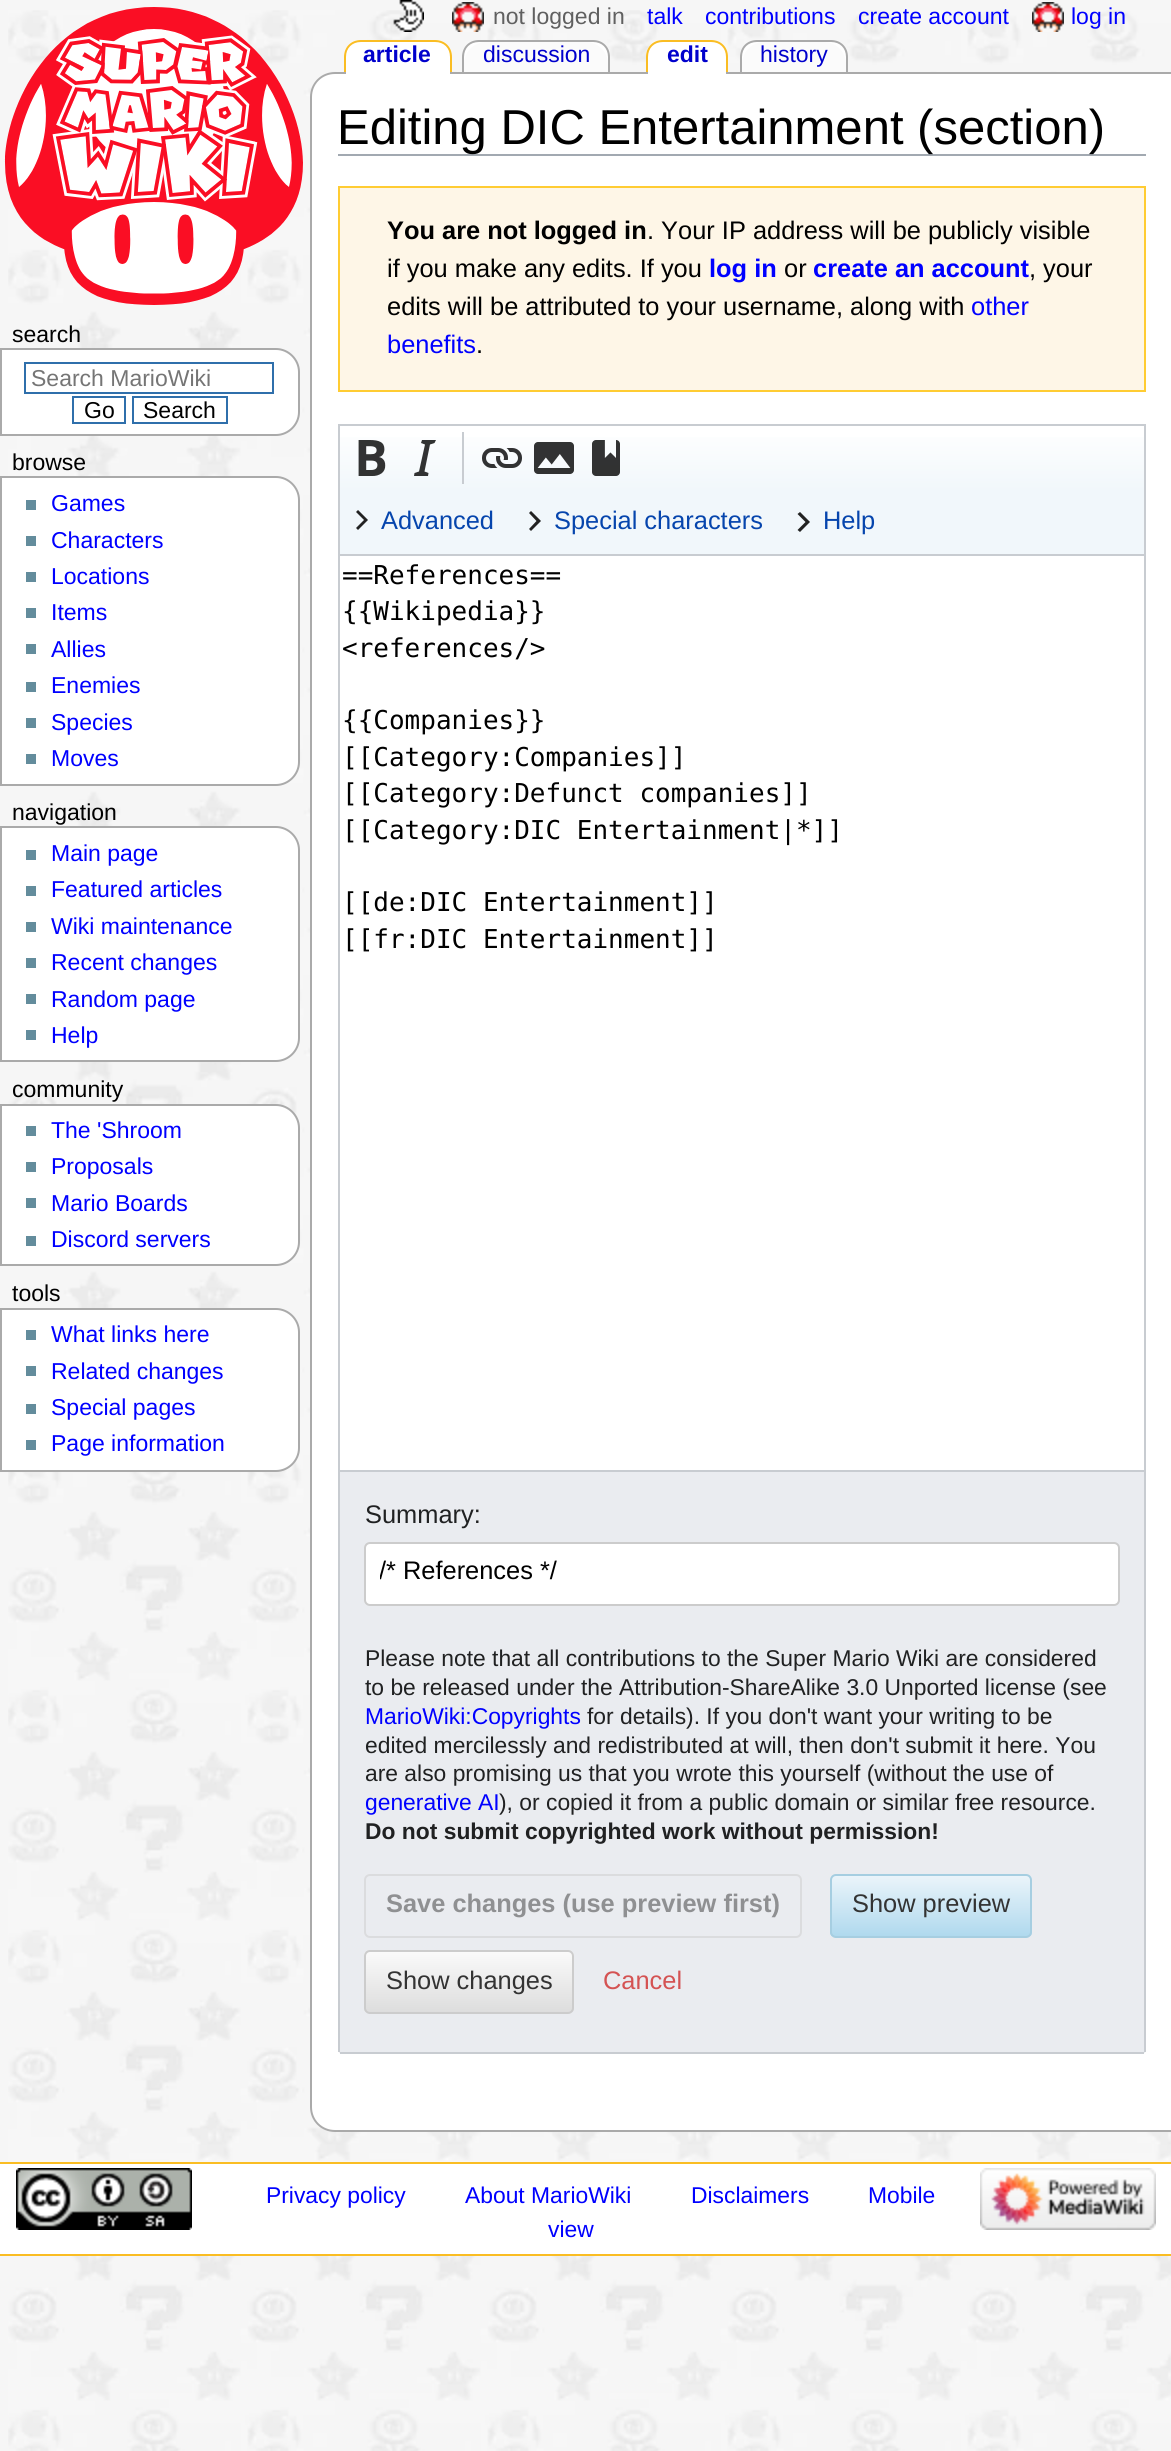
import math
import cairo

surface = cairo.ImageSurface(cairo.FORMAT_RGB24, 1171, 2451)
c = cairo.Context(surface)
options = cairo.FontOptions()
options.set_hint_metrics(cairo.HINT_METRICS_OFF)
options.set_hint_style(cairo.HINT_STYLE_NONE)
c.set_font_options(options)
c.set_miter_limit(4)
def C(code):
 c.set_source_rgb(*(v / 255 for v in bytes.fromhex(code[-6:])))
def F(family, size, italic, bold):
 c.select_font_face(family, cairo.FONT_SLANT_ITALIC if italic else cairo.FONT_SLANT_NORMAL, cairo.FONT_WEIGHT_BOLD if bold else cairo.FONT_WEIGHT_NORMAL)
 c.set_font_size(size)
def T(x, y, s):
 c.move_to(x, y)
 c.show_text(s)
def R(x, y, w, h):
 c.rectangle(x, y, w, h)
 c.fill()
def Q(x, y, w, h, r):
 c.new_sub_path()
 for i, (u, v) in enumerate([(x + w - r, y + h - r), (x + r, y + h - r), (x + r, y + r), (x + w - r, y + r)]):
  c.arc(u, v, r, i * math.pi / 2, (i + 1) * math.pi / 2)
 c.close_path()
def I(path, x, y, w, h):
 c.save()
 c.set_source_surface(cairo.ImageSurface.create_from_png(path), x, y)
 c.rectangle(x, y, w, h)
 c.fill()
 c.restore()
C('f6f6f6')
c.paint()
I('1.png',8,10,1163,2441)
I('2.png',4,7,299,298)
I('3.png',393,0,31,32)
I('4.png',452,2,32,30)
F('Liberation Sans',23,0,0)
C('606060')
T(493,24,'not logged in')
C('0000ff')
T(647,24,'talk')
T(705,24,'contributions')
T(858,24,'create account')
I('5.png',1032,2,32,30)
T(1071,24,'log in')
C('ffffff')
c.new_path()
c.move_to(360,40)
c.line_to(436,40)
c.curve_to(445,40,452,47,452,56)
c.line_to(452,90)
c.line_to(344,90)
c.line_to(344,56)
c.curve_to(344,47,351,40,360,40)
c.close_path()
c.fill()
C('fabd23')
c.set_fill_rule(cairo.FILL_RULE_EVEN_ODD)
c.new_path()
c.move_to(361,40)
c.line_to(435,40)
c.curve_to(445,40,452,47,452,57)
c.line_to(452,90)
c.line_to(344,90)
c.line_to(344,57)
c.curve_to(344,47,351,40,361,40)
c.close_path()
c.move_to(361,42)
c.line_to(435,42)
c.curve_to(444,42,450,48,450,57)
c.line_to(450,90)
c.line_to(346,90)
c.line_to(346,57)
c.curve_to(346,48,352,42,361,42)
c.close_path()
c.fill()
C('ffffff')
c.new_path()
c.move_to(478,40)
c.line_to(594,40)
c.curve_to(603,40,610,47,610,56)
c.line_to(610,90)
c.line_to(462,90)
c.line_to(462,56)
c.curve_to(462,47,469,40,478,40)
c.close_path()
c.fill()
C('aaaaaa')
c.new_path()
c.move_to(479,40)
c.line_to(593,40)
c.curve_to(603,40,610,47,610,57)
c.line_to(610,90)
c.line_to(462,90)
c.line_to(462,57)
c.curve_to(462,47,469,40,479,40)
c.close_path()
c.move_to(479,42)
c.line_to(593,42)
c.curve_to(602,42,608,48,608,57)
c.line_to(608,90)
c.line_to(464,90)
c.line_to(464,57)
c.curve_to(464,48,470,42,479,42)
c.close_path()
c.fill()
C('fbfbfb')
c.new_path()
c.move_to(486,42)
c.line_to(586,42)
c.curve_to(598,42,608,52,608,64)
c.line_to(608,74)
c.line_to(464,74)
c.line_to(464,64)
c.curve_to(464,52,474,42,486,42)
c.close_path()
c.fill()
C('ffffff')
c.new_path()
c.move_to(662,40)
c.line_to(712,40)
c.curve_to(721,40,728,47,728,56)
c.line_to(728,90)
c.line_to(646,90)
c.line_to(646,56)
c.curve_to(646,47,653,40,662,40)
c.close_path()
c.fill()
C('fabd23')
c.new_path()
c.move_to(663,40)
c.line_to(711,40)
c.curve_to(721,40,728,47,728,57)
c.line_to(728,90)
c.line_to(646,90)
c.line_to(646,57)
c.curve_to(646,47,653,40,663,40)
c.close_path()
c.move_to(663,42)
c.line_to(711,42)
c.curve_to(720,42,726,48,726,57)
c.line_to(726,90)
c.line_to(648,90)
c.line_to(648,57)
c.curve_to(648,48,654,42,663,42)
c.close_path()
c.fill()
C('ffffff')
c.new_path()
c.move_to(756,40)
c.line_to(832,40)
c.curve_to(841,40,848,47,848,56)
c.line_to(848,90)
c.line_to(740,90)
c.line_to(740,56)
c.curve_to(740,47,747,40,756,40)
c.close_path()
c.fill()
C('aaaaaa')
c.new_path()
c.move_to(757,40)
c.line_to(831,40)
c.curve_to(841,40,848,47,848,57)
c.line_to(848,90)
c.line_to(740,90)
c.line_to(740,57)
c.curve_to(740,47,747,40,757,40)
c.close_path()
c.move_to(757,42)
c.line_to(831,42)
c.curve_to(840,42,846,48,846,57)
c.line_to(846,90)
c.line_to(742,90)
c.line_to(742,57)
c.curve_to(742,48,748,42,757,42)
c.close_path()
c.fill()
C('fbfbfb')
c.new_path()
c.move_to(764,42)
c.line_to(824,42)
c.curve_to(836,42,846,52,846,64)
c.line_to(846,74)
c.line_to(742,74)
c.line_to(742,64)
c.curve_to(742,52,752,42,764,42)
c.close_path()
c.fill()
C('ffffff')
c.new_path()
c.move_to(336,72)
c.line_to(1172,72)
c.line_to(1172,2132)
c.line_to(336,2132)
c.curve_to(321.5,2132,310,2120.5,310,2106)
c.line_to(310,98)
c.curve_to(310,83.5,321.5,72,336,72)
c.close_path()
c.fill()
C('aaaaaa')
c.new_path()
c.move_to(335,72)
c.line_to(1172,72)
c.line_to(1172,2132)
c.line_to(335,2132)
c.curve_to(321,2132,310,2121,310,2107)
c.line_to(310,97)
c.curve_to(310,83,321,72,335,72)
c.close_path()
c.move_to(335,74)
c.line_to(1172,74)
c.line_to(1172,2130)
c.line_to(335,2130)
c.curve_to(322,2130,312,2120,312,2107)
c.line_to(312,97)
c.curve_to(312,84,322,74,335,74)
c.close_path()
c.fill()
C('ffffff')
c.new_path()
c.move_to(368,42)
c.line_to(428,42)
c.curve_to(440,42,450,52,450,64)
c.line_to(450,74)
c.line_to(346,74)
c.line_to(346,64)
c.curve_to(346,52,356,42,368,42)
c.close_path()
c.fill()
F('Liberation Sans',23,0,1)
C('0000cc')
T(363,62,'article')
F('Liberation Sans',23,0,0)
T(483,62,'discussion')
C('ffffff')
c.new_path()
c.move_to(670,42)
c.line_to(704,42)
c.curve_to(716,42,726,52,726,64)
c.line_to(726,74)
c.line_to(648,74)
c.line_to(648,64)
c.curve_to(648,52,658,42,670,42)
c.close_path()
c.fill()
F('Liberation Sans',23,0,1)
C('0000cc')
T(667,62,'edit')
F('Liberation Sans',23,0,0)
T(760,62,'history')
C('000000')
T(12,342,'search')
C('ffffff')
c.new_path()
c.move_to(1,349)
c.line_to(276,349)
c.curve_to(288.5,349,299,359.5,299,372)
c.line_to(299,412)
c.curve_to(299,424.5,288.5,435,276,435)
c.line_to(1,435)
c.close_path()
c.fill_preserve()
C('aaaaaa')
c.stroke()
c.rectangle(25,363,248,30)
C('2f6fab')
c.stroke()
C('757575')
T(31,386,'Search MarioWiki')
c.rectangle(73,397,52,26)
C('2f6fab')
c.stroke()
C('000000')
T(84,418,'Go')
c.rectangle(133,397,94,26)
C('2f6fab')
c.stroke()
C('000000')
T(143,418,'Search')
T(12,470,'browse')
C('ffffff')
c.new_path()
c.move_to(1,477)
c.line_to(276,477)
c.curve_to(288.5,477,299,487.5,299,500)
c.line_to(299,762)
c.curve_to(299,774.5,288.5,785,276,785)
c.line_to(1,785)
c.close_path()
c.fill_preserve()
C('aaaaaa')
c.stroke()
C('638c9c')
R(26,500,10,10)
C('0000ff')
T(51,511,'Games')
C('638c9c')
R(26,536,10,10)
C('0000ff')
T(51,548,'Characters')
C('638c9c')
R(26,572,10,10)
C('0000ff')
T(51,584,'Locations')
C('638c9c')
R(26,608,10,10)
C('0000ff')
T(51,620,'Items')
C('638c9c')
R(26,644,10,10)
C('0000ff')
T(51,657,'Allies')
C('638c9c')
R(26,682,10,10)
C('0000ff')
T(51,693,'Enemies')
C('638c9c')
R(26,718,10,10)
C('0000ff')
T(51,730,'Species')
C('638c9c')
R(26,754,10,10)
C('0000ff')
T(51,766,'Moves')
C('000000')
T(12,820,'navigation')
C('ffffff')
c.new_path()
c.move_to(1,827)
c.line_to(276,827)
c.curve_to(288.5,827,299,837.5,299,850)
c.line_to(299,1038)
c.curve_to(299,1050.5,288.5,1061,276,1061)
c.line_to(1,1061)
c.close_path()
c.fill_preserve()
C('aaaaaa')
c.stroke()
C('638c9c')
R(26,850,10,10)
C('0000ff')
T(51,861,'Main page')
C('638c9c')
R(26,886,10,10)
C('0000ff')
T(51,897,'Featured articles')
C('638c9c')
R(26,922,10,10)
C('0000ff')
T(51,934,'Wiki maintenance')
C('638c9c')
R(26,958,10,10)
C('0000ff')
T(51,970,'Recent changes')
C('638c9c')
R(26,994,10,10)
C('0000ff')
T(51,1007,'Random page')
C('638c9c')
R(26,1030,10,10)
C('0000ff')
T(51,1043,'Help')
C('000000')
T(12,1097,'community')
C('ffffff')
c.new_path()
c.move_to(1,1105)
c.line_to(276,1105)
c.curve_to(288.5,1105,299,1115.5,299,1128)
c.line_to(299,1242)
c.curve_to(299,1254.5,288.5,1265,276,1265)
c.line_to(1,1265)
c.close_path()
c.fill_preserve()
C('aaaaaa')
c.stroke()
C('638c9c')
R(26,1126,10,10)
C('0000ff')
T(51,1138,'The \'Shroom')
C('638c9c')
R(26,1162,10,10)
C('0000ff')
T(51,1174,'Proposals')
C('638c9c')
R(26,1198,10,10)
C('0000ff')
T(51,1211,'Mario Boards')
C('638c9c')
R(26,1236,10,10)
C('0000ff')
T(51,1247,'Discord servers')
C('000000')
T(12,1301,'tools')
C('ffffff')
c.new_path()
c.move_to(1,1309)
c.line_to(276,1309)
c.curve_to(288.5,1309,299,1319.5,299,1332)
c.line_to(299,1448)
c.curve_to(299,1460.5,288.5,1471,276,1471)
c.line_to(1,1471)
c.close_path()
c.fill_preserve()
C('aaaaaa')
c.stroke()
C('638c9c')
R(26,1330,10,10)
C('0000ff')
T(51,1342,'What links here')
C('638c9c')
R(26,1366,10,10)
C('0000ff')
T(51,1379,'Related changes')
C('638c9c')
R(26,1404,10,10)
C('0000ff')
T(51,1415,'Special pages')
C('638c9c')
R(26,1440,10,10)
C('0000ff')
T(51,1451,'Page information')
C('a2a9b1')
R(338,154,808,2)
F('Liberation Sans',49,0,0)
C('000000')
T(337,144,'Editing DIC Entertainment (section)')
C('fef6e7')
c.rectangle(339,187,806,204)
c.fill_preserve()
C('ffcc33')
c.stroke()
F('Liberation Sans',25.4,0,1)
C('000000')
T(387,239,'You are not logged in')
F('Liberation Sans',25.4,0,0)
T(647,239,'. Your IP address will be publicly visible')
T(387,277,'if you make any edits. If you')
F('Liberation Sans',25.4,0,1)
C('0000ff')
T(709,277,'log in')
F('Liberation Sans',25.4,0,0)
C('000000')
T(784,277,'or')
F('Liberation Sans',25.4,0,1)
C('0000ff')
T(813,277,'create an account')
F('Liberation Sans',25.4,0,0)
C('000000')
T(1029,277,', your')
T(387,315,'edits will be attributed to your username, along with')
C('0000ff')
T(971,315,'other')
T(387,353,'benefits')
C('000000')
T(476,353,'.')
c.rectangle(339,425,806,1046)
C('c8ccd1')
c.stroke()
R(340,554,804,2)
gradient = cairo.LinearGradient(742,426,742,554)
gradient.add_color_stop_rgba(0,1,1,1,1)
gradient.add_color_stop_rgba(.5,0.945,0.969,0.984,1)
c.set_source(gradient)
R(340,437,804,117)
C('c8ccd1')
R(462,432,2,52)
I('6.png',358,440,28,36)
c.set_source_rgba(0,0,0,0.8)
c.set_fill_rule(cairo.FILL_RULE_WINDING)
c.new_path()
c.move_to(414,476)
c.line_to(414.5,473)
c.line_to(419,471.5)
c.line_to(425,444.5)
c.line_to(421,443)
c.line_to(422,440)
c.line_to(436,440)
c.line_to(434.5,443)
c.line_to(430,444.5)
c.line_to(424.5,471.5)
c.line_to(428.5,473)
c.line_to(428,476)
c.close_path()
c.fill()
I('7.png',482,448,40,20)
I('8.png',534,442,40,32)
I('9.png',592,440,28,36)
C('222222')
c.new_path()
c.move_to(356,512)
c.line_to(364,520)
c.line_to(356,528)
c.line_to(358,530)
c.line_to(368,520)
c.line_to(358,510)
c.close_path()
c.fill()
C('0645ad')
T(381,529,'Advanced')
C('222222')
c.new_path()
c.move_to(529,513)
c.line_to(536.5,521)
c.line_to(529,529)
c.line_to(531,531)
c.line_to(541,521)
c.line_to(531,511)
c.close_path()
c.fill()
C('0645ad')
T(554,529,'Special characters')
C('222222')
c.new_path()
c.move_to(797.5,514)
c.line_to(805.5,522)
c.line_to(797.5,530)
c.line_to(800,532)
c.line_to(810,522)
c.line_to(800,512)
c.close_path()
c.fill()
C('0645ad')
T(823,529,'Help')
F('DejaVu Sans Mono',26,0,0)
C('000000')
T(342,584,'==References==')
T(342,620,'{{Wikipedia}}')
T(342,657,'<references/>')
T(342,729,'{{Companies}}')
T(342,766,'[[Category:Companies]]')
T(342,802,'[[Category:Defunct companies]]')
T(342,839,'[[Category:DIC Entertainment|*]]')
T(342,911,'[[de:DIC Entertainment]]')
T(342,948,'[[fr:DIC Entertainment]]')
C('eaecf0')
c.new_path()
c.move_to(338,1472)
c.line_to(1146,1472)
c.line_to(1146,2050)
c.curve_to(1146,2052,1144,2054,1142,2054)
c.line_to(342,2054)
c.curve_to(340,2054,338,2052,338,2050)
c.close_path()
c.fill()
C('c8ccd1')
R(1144,1472,2,580)
R(340,2052,804,2)
R(338,1472,2,580)
F('Liberation Sans',25.4,0,0)
C('202122')
T(365,1523,'Summary:')
C('ffffff')
Q(365,1543,754,62,5)
c.fill_preserve()
C('cccccc')
c.stroke()
c.save()
c.rectangle(380,1556,724,36)
c.clip()
C('000000')
T(379,1579,'/* References */')
c.restore()
F('Liberation Sans',22.85,0,0)
C('202122')
T(365,1666,'Please note that all contributions to the Super Mario Wiki are considered')
T(365,1695,'to be released under the Attribution-ShareAlike 3.0 Unported license (see')
C('0000ff')
T(365,1724,'MarioWiki:Copyrights')
C('202122')
T(587,1724,'for details). If you don\'t want your writing to be')
T(365,1753,'edited mercilessly and redistributed at will, then don\'t submit it here. You')
T(365,1781,'are also promising us that you wrote this yourself (without the use of')
C('0000ff')
T(365,1810,'generative AI')
C('202122')
T(499,1810,'), or copied it from a public domain or similar free resource.')
F('Liberation Sans',22.85,0,1)
T(365,1839,'Do not submit copyrighted work without permission!')
Q(365,1875,436,62,5)
C('dbdcde')
c.stroke()
F('Liberation Sans',25.4,0,1)
C('8f9092')
T(386,1912,'Save changes (use preview first)')
c.save()
Q(830,1874,202,64,6)
c.clip()
gradient = cairo.LinearGradient(931,1876,931,1936)
gradient.add_color_stop_rgba(0,0.918,0.957,0.98,1)
gradient.add_color_stop_rgba(1,0.69,0.851,0.933,1)
c.set_source(gradient)
R(830,1876,202,60)
c.restore()
Q(831,1875,200,62,5)
C('a6cee1')
c.stroke()
F('Liberation Sans',25.4,0,0)
C('333333')
T(852,1912,'Show preview')
c.save()
Q(364,1950,210,64,6)
c.clip()
gradient = cairo.LinearGradient(469,1952,469,2012)
gradient.add_color_stop_rgba(0,0.98,0.98,0.98,1)
gradient.add_color_stop_rgba(1,0.867,0.867,0.867,1)
c.set_source(gradient)
R(364,1952,210,60)
c.restore()
Q(365,1951,208,62,5)
C('cccccc')
c.stroke()
C('333333')
T(386,1989,'Show changes')
C('d45353')
T(603,1989,'Cancel')
C('ffffff')
R(0,2164,1171,90)
C('fabd23')
R(0,2162,1171,2)
R(0,2254,1171,2)
I('10.png',16,2168,176,62)
F('Liberation Sans',22.85,0,0)
C('0000ff')
T(266,2203,'Privacy policy')
T(465,2203,'About MarioWiki')
T(691,2203,'Disclaimers')
T(868,2203,'Mobile')
T(548,2237,'view')
I('11.png',980,2168,176,62)
surface.write_to_png('o.png')
